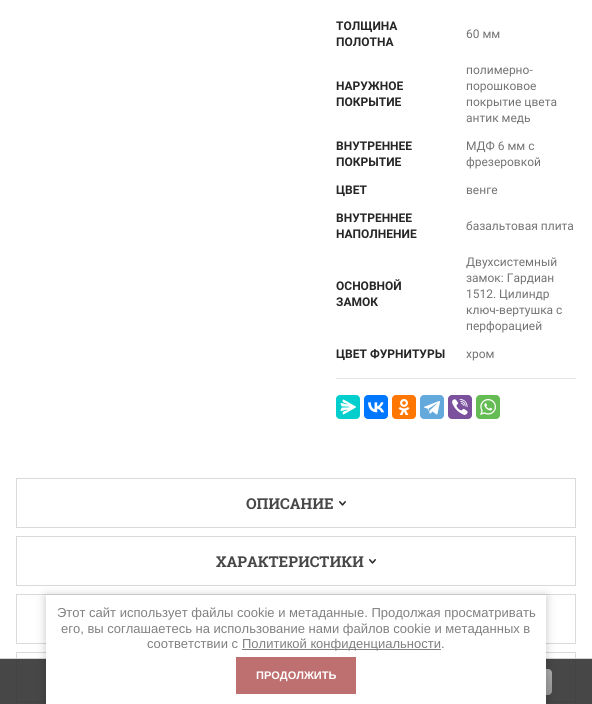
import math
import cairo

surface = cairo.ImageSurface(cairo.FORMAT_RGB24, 592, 704)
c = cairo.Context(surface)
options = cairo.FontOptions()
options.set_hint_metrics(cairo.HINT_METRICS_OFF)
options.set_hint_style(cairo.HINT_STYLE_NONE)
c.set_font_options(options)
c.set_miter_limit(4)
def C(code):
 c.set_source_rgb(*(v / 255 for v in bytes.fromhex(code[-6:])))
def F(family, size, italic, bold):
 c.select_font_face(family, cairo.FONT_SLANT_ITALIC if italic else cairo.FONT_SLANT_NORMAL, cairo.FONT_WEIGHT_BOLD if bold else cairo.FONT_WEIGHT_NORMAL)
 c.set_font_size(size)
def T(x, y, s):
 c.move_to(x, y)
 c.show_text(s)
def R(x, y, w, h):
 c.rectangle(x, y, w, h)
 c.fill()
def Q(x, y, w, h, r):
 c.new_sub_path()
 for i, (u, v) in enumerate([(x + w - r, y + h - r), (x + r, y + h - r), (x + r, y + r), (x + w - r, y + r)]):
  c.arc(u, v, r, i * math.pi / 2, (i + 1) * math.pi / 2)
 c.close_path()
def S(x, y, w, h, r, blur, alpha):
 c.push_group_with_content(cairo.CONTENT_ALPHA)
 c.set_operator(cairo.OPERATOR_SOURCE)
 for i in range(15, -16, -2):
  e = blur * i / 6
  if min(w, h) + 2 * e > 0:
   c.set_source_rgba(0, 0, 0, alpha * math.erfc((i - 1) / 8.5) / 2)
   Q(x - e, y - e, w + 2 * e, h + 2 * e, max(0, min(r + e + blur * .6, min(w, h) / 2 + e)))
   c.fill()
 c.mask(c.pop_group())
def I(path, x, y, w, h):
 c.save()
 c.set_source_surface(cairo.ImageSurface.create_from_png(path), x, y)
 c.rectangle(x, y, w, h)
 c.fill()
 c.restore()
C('ffffff')
c.paint()
C('e6e6e6')
R(336,378,240,1)
F('Roboto',12,0,1)
C('262626')
T(336,30,'ТОЛЩИНА')
T(336,46,'ПОЛОТНА')
F('Roboto',12,0,0)
C('737373')
T(466,38,'60 мм')
F('Roboto',12,0,1)
C('262626')
T(336,90,'НАРУЖНОЕ')
T(336,106,'ПОКРЫТИЕ')
F('Roboto',12,0,0)
C('737373')
T(466,74,'полимерно-')
T(466,90,'порошковое')
T(466,106,'покрытие цвета')
T(466,122,'антик медь')
F('Roboto',12,0,1)
C('262626')
T(336,150,'ВНУТРЕННЕЕ')
T(336,166,'ПОКРЫТИЕ')
F('Roboto',12,0,0)
C('737373')
T(466,150,'МДФ 6 мм с')
T(466,166,'фрезеровкой')
F('Roboto',12,0,1)
C('262626')
T(336,194,'ЦВЕТ')
F('Roboto',12,0,0)
C('737373')
T(466,194,'венге')
F('Roboto',12,0,1)
C('262626')
T(336,222,'ВНУТРЕННЕЕ')
T(336,238,'НАПОЛНЕНИЕ')
F('Roboto',12,0,0)
C('737373')
T(466,230,'базальтовая плита')
F('Roboto',12,0,1)
C('262626')
T(336,290,'ОСНОВНОЙ')
T(336,306,'ЗАМОК')
F('Roboto',12,0,0)
C('737373')
T(466,266,'Двухсистемный')
T(466,282,'замок: Гардиан')
T(466,298,'1512. Цилиндр')
T(466,314,'ключ-вертушка с')
T(466,330,'перфорацией')
F('Roboto',12,0,1)
C('262626')
T(336,358,'ЦВЕТ ФУРНИТУРЫ')
F('Roboto',12,0,0)
C('737373')
T(466,358,'хром')
C('03cece')
Q(336,395,24,24,4)
c.fill()
I('1.png',340,399,16,16)
C('0077ff')
Q(364,395,24,24,4)
c.fill()
I('2.png',368,402,16,11)
C('ff7700')
Q(392,395,24,24,4)
c.fill()
I('3.png',398,399,12,16)
C('64a9dc')
Q(420,395,24,24,4)
c.fill()
I('4.png',424,401,16,14)
C('7b519d')
Q(448,395,24,24,4)
c.fill()
I('5.png',452,399,16,16)
C('65bc54')
Q(476,395,24,24,4)
c.fill()
I('6.png',480,399,16,16)
c.rectangle(16.5,478.5,559,49)
C('d9d9d9')
c.set_line_width(1)
c.stroke()
F('Roboto Slab',15,0,1)
C('474747')
T(246,509,'ОПИСАНИЕ')
I('7.png',339,501,7,5)
c.rectangle(16.5,536.5,559,49)
C('d9d9d9')
c.stroke()
C('474747')
T(216,567,'ХАРАКТЕРИСТИКИ')
I('7.png',369,559,7,5)
c.rectangle(16.5,594.5,559,49)
C('d9d9d9')
c.stroke()
c.rectangle(16.5,652.5,559,49)
c.stroke()
c.set_source_rgba(0.2,0.2,0.2,0.9)
R(0,659,592,45)
C('d4d4d4')
R(0,658,592,1)
gradient = cairo.LinearGradient(491,669,491,695)
gradient.add_color_stop_rgba(0,0.667,0.667,0.667,1)
gradient.add_color_stop_rgba(1,0.6,0.6,0.6,1)
c.set_source(gradient)
Q(430,669,122,26,4)
c.fill()
C('000000')
S(46,596,500,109,0,5,.23)
C('ffffff')
R(46,595,500,109)
F('Liberation Sans',13,0,0)
C('808080')
T(57,617,'Этот сайт использует файлы cookie и метаданные. Продолжая просматривать')
T(61,633,'его, вы соглашаетесь на использование нами файлов cookie и метаданных в')
T(147,648,'соответствии с')
R(242,649,199,1)
T(242,648,'Политикой конфиденциальности.')
C('bd706f')
R(236,657,120,37)
F('Liberation Sans',11,0,1)
C('ffffff')
T(256,679,'ПРОДОЛЖИТЬ')
surface.write_to_png('o.png')
